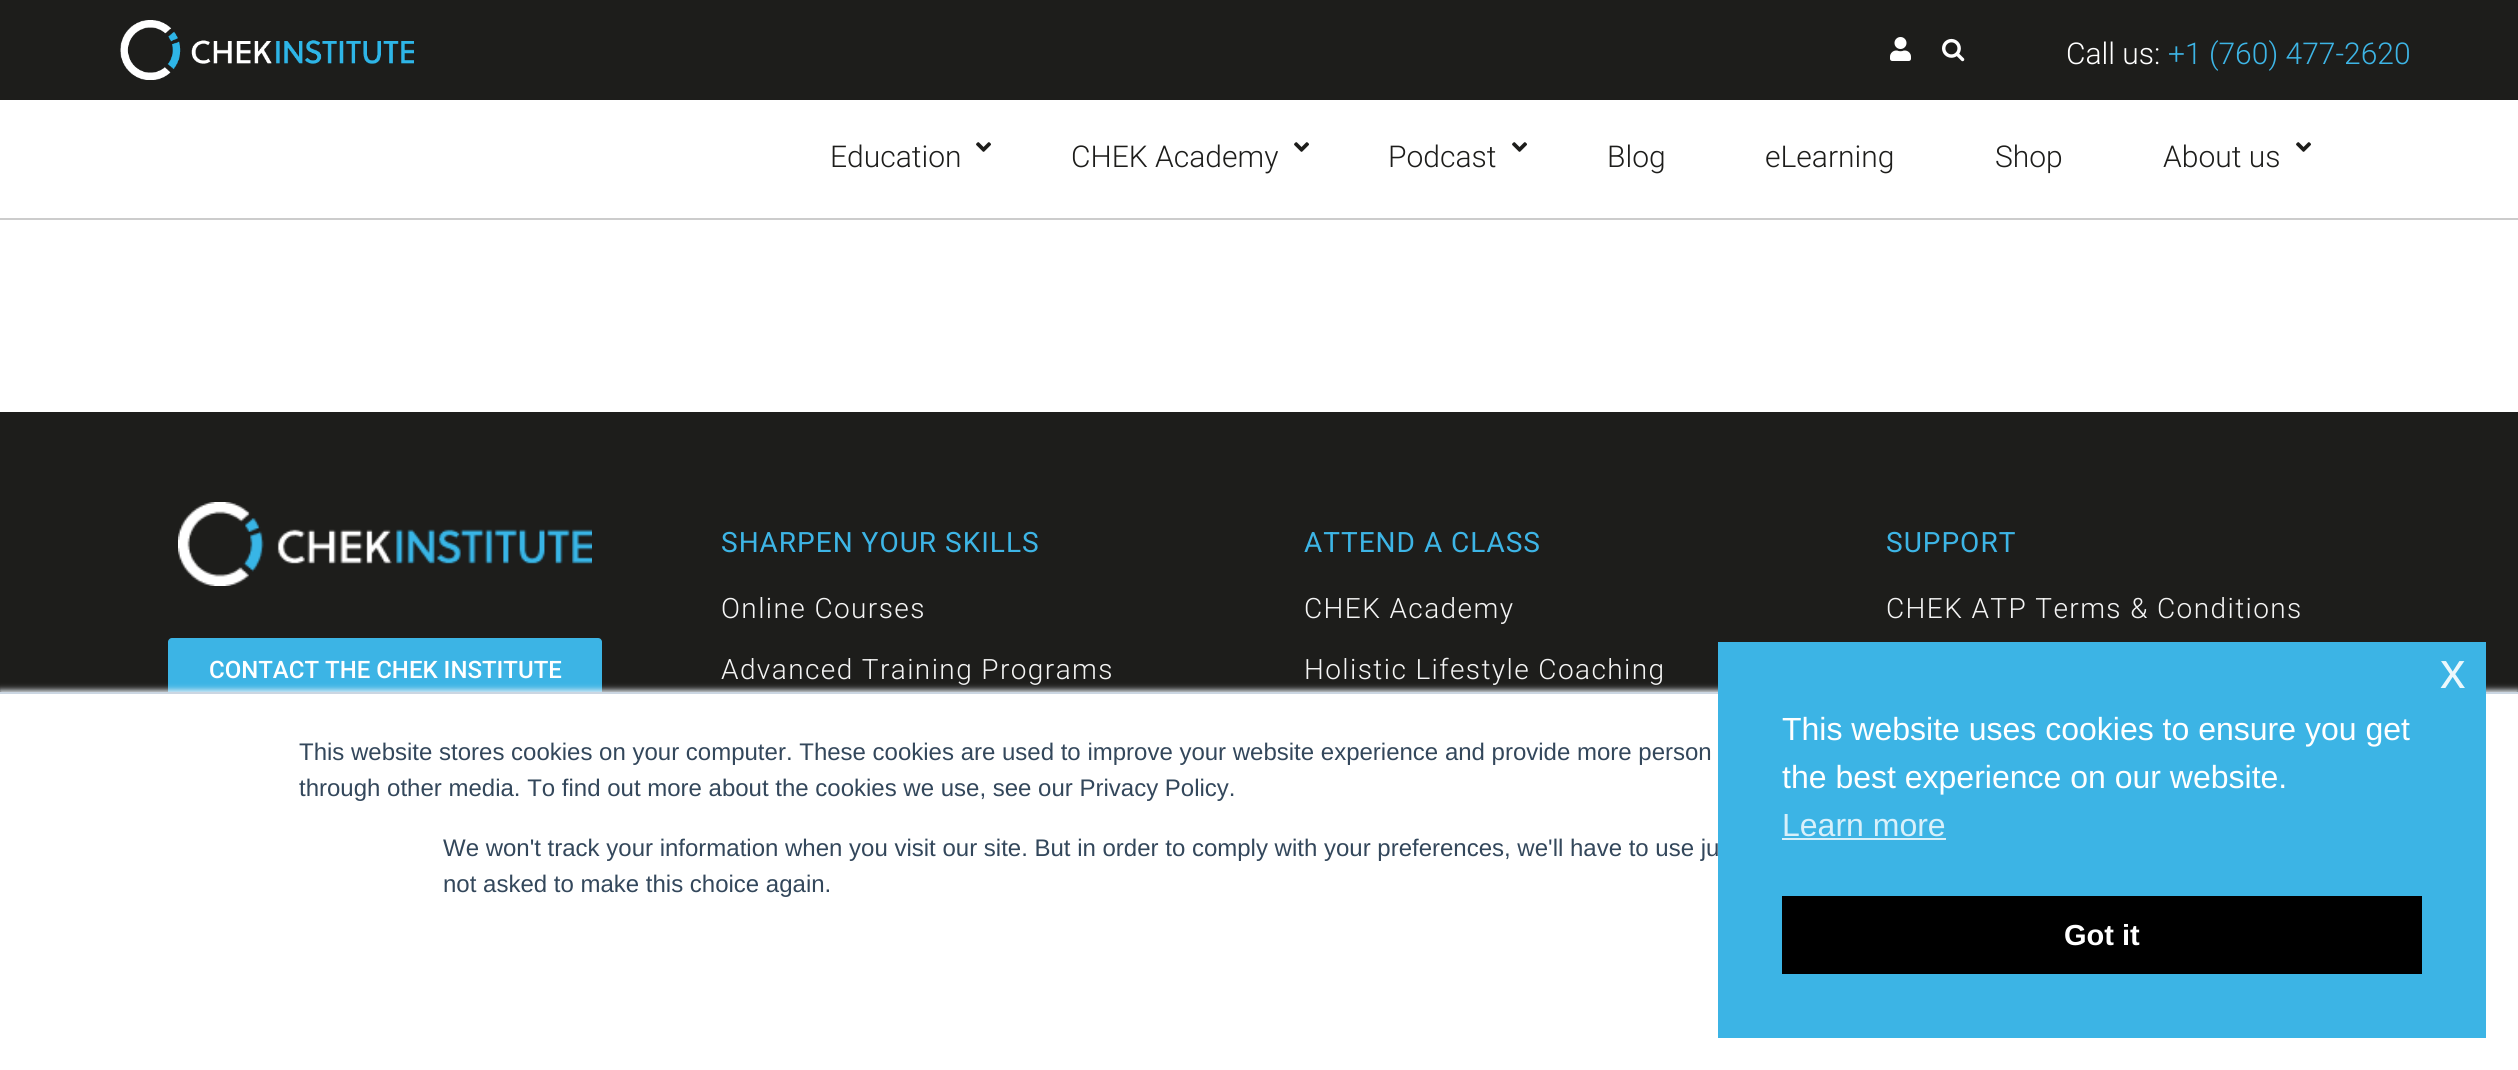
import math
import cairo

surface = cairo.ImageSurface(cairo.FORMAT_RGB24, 2518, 1070)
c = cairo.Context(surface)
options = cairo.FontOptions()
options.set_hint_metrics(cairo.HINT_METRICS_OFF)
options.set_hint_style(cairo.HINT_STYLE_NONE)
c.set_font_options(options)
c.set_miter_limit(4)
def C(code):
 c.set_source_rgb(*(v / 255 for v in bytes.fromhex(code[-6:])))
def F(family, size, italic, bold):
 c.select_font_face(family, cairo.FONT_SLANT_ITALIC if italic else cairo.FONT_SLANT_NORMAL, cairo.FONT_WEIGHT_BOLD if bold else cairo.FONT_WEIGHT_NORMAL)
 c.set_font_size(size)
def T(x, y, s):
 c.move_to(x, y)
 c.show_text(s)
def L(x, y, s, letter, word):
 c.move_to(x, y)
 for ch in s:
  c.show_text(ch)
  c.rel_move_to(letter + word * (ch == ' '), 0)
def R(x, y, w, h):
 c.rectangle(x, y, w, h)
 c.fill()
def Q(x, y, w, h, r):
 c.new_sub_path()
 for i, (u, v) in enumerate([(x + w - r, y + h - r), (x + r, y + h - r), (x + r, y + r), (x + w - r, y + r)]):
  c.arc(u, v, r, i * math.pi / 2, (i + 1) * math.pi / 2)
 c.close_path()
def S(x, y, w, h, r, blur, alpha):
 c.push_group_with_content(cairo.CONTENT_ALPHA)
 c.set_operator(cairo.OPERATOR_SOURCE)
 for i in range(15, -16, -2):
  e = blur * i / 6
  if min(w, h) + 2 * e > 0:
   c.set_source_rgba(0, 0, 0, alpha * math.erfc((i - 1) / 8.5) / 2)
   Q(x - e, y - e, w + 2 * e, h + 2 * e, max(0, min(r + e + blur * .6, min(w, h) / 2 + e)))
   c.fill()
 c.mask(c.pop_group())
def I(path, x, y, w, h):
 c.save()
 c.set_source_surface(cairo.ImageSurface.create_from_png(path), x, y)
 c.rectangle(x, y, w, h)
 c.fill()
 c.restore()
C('ffffff')
c.paint()
C('1d1d1b')
R(0,0,2518,100)
I('1.png',120,20,294,60)
I('2.png',1890,37,21,24)
I('3.png',1942,38,23,24)
F('Roboto Light',30,0,0)
C('ffffff')
T(2066,64,'Call us:')
C('3db5e6')
T(2168,64,'+1 (760) 477-2620')
C('cccccc')
R(0,218,2518,2)
C('1d1d1b')
T(830,167,'Education')
I('4.png',976,142,15,10)
T(1071,167,'CHEK Academy')
I('4.png',1294,142,15,10)
T(1388,167,'Podcast')
I('4.png',1512,142,15,10)
T(1607,167,'Blog')
T(1765,167,'eLearning')
T(1995,167,'Shop')
T(2163,167,'About us')
I('4.png',2296,142,15,10)
R(0,412,2518,280)
F('Roboto',28,0,0)
C('3db5e6')
L(721,552,'SHARPEN YOUR SKILLS',1,0)
F('Roboto Light',28,0,0)
C('f4f4f4')
L(721,618,'Online Courses',1.4,0)
L(721,679,'Advanced Training Programs',1.4,0)
F('Roboto',28,0,0)
C('3db5e6')
L(1304,552,'ATTEND A CLASS',1,0)
F('Roboto Light',28,0,0)
C('f4f4f4')
L(1304,618,'CHEK Academy',1.4,0)
L(1304,679,'Holistic Lifestyle Coaching',1.4,0)
F('Roboto',28,0,0)
C('3db5e6')
L(1886,552,'SUPPORT',1,0)
F('Roboto Light',28,0,0)
C('f4f4f4')
L(1886,618,'CHEK ATP Terms & Conditions',1.4,0)
I('5.png',178,502,414,84)
C('3cb4e5')
Q(168,638,434,64,4)
c.fill()
F('Roboto Medium',24,0,0)
C('ffffff')
T(209,678,'CONTACT THE CHEK INSTITUTE')
C('eaf0f6')
S(0,690,2518,378,0,3,1)
C('ffffff')
R(0,694,2518,376)
C('cbd6e2')
R(0,692,2518,2)
F('Liberation Sans',24,0,0)
C('33475b')
T(299,760,'This website stores cookies on your computer. These cookies are used to improve your website experience and provide more person')
T(299,796,'through other media. To find out more about the cookies we use, see our Privacy Policy.')
T(443,856,'We won\'t track your information when you visit our site. But in order to comply with your preferences, we\'ll have to use ju')
T(443,892,'not asked to make this choice again.')
C('3cb4e5')
R(1718,642,768,396)
F('Liberation Sans',51,0,0)
C('ecf8fc')
T(2440,688,'x')
F('Liberation Sans',32,0,0)
C('ffffff')
T(1782,740,'This website uses cookies to ensure you get')
T(1782,788,'the best experience on our website.')
C('d8f0fa')
T(1782,836,'Learn more')
R(1782,838,164,2)
C('000000')
R(1782,896,640,78)
F('Liberation Sans',29,0,1)
C('ffffff')
T(2064,945,'Got it')
surface.write_to_png('o.png')
